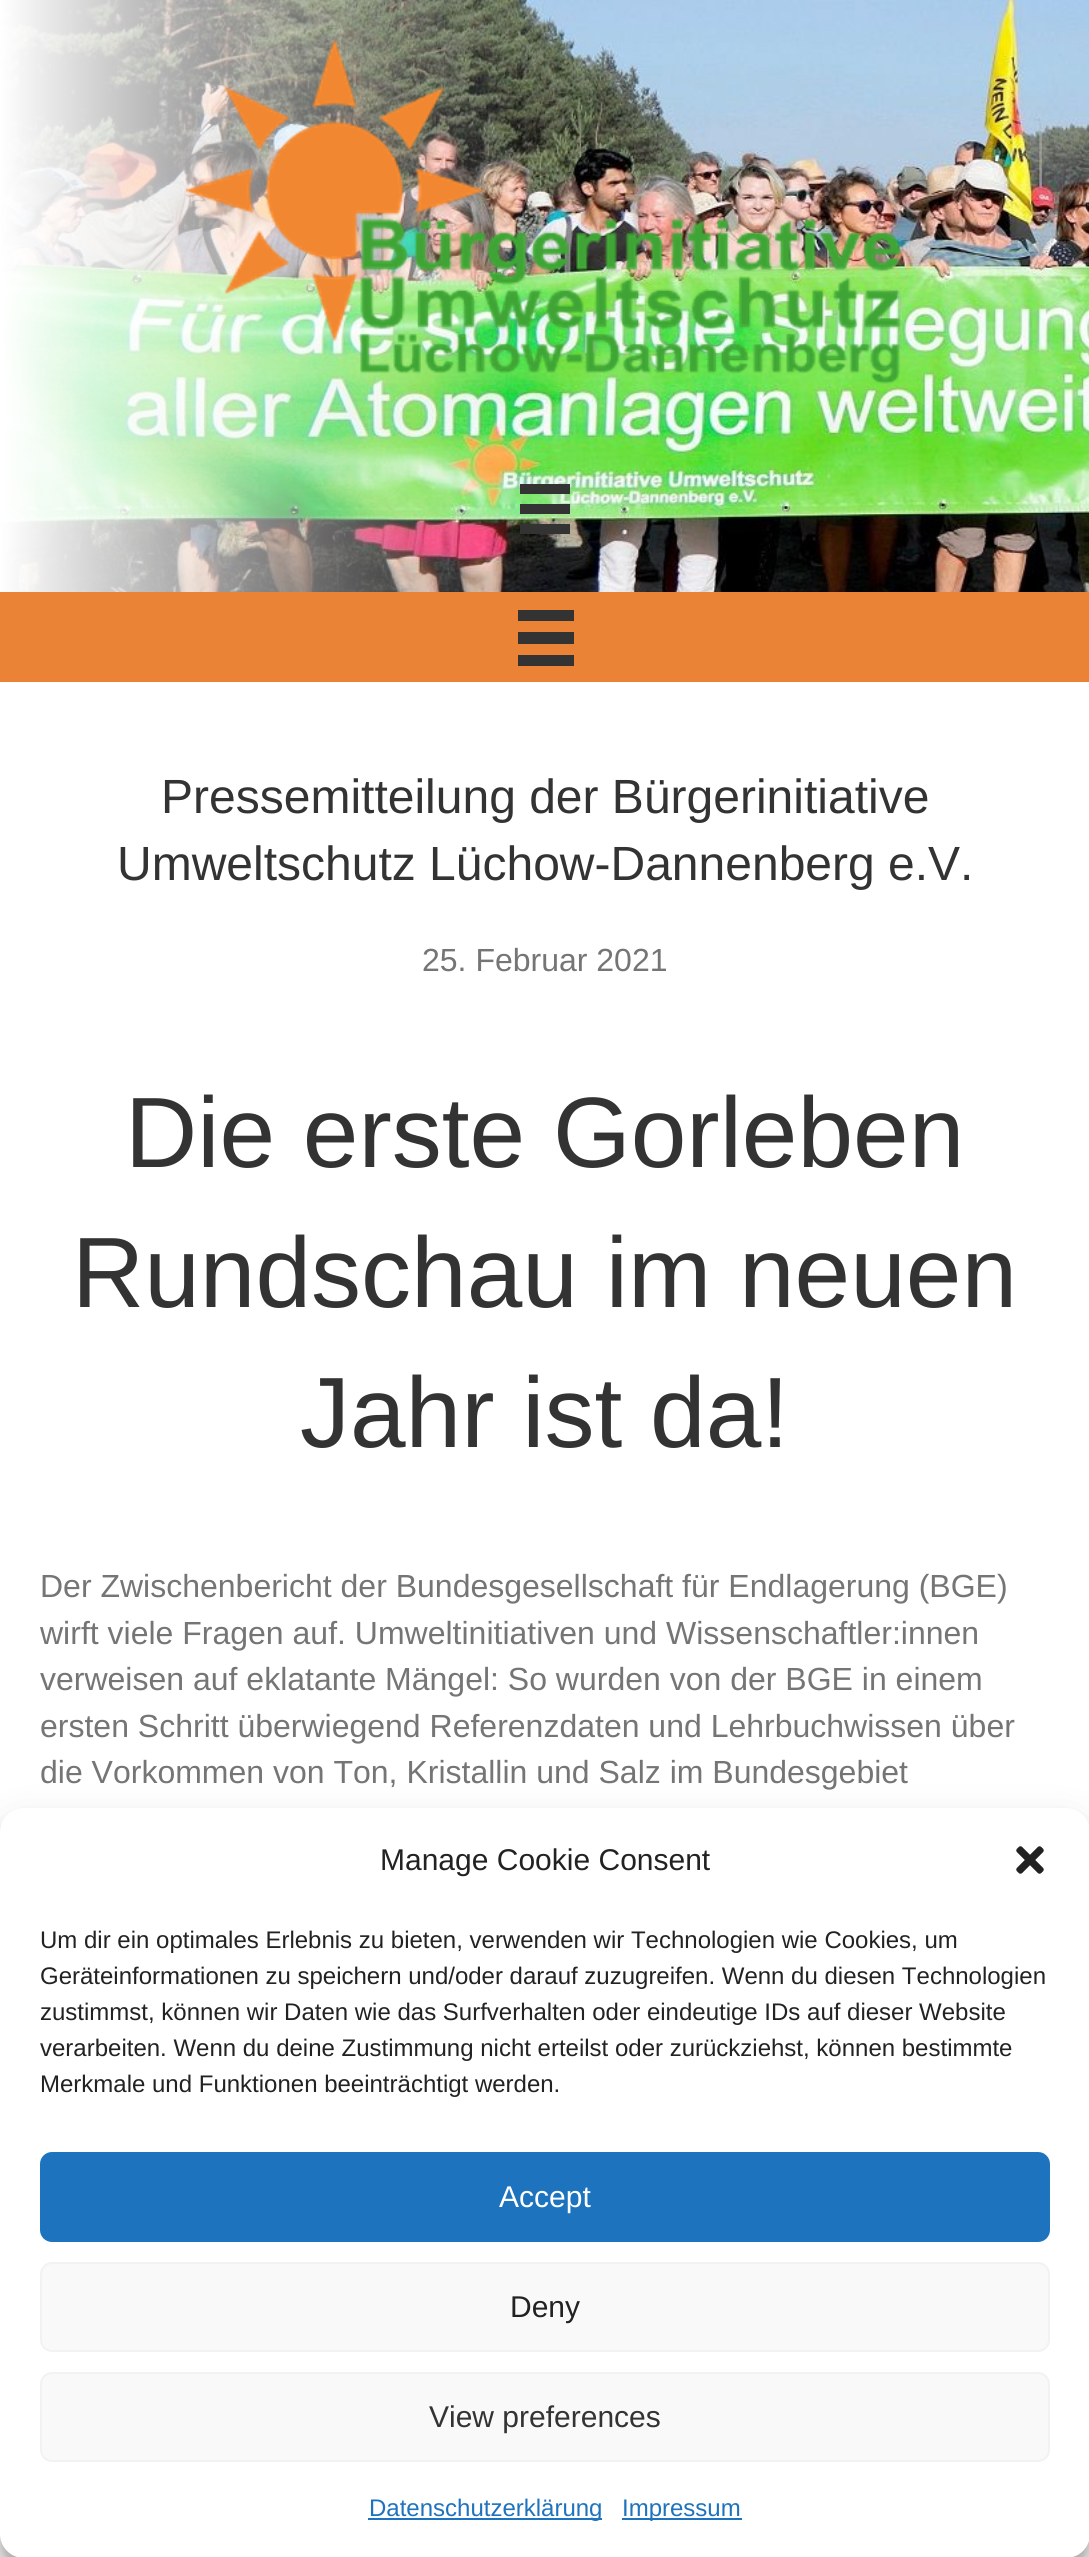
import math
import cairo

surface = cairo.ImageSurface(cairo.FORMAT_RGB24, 1089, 2557)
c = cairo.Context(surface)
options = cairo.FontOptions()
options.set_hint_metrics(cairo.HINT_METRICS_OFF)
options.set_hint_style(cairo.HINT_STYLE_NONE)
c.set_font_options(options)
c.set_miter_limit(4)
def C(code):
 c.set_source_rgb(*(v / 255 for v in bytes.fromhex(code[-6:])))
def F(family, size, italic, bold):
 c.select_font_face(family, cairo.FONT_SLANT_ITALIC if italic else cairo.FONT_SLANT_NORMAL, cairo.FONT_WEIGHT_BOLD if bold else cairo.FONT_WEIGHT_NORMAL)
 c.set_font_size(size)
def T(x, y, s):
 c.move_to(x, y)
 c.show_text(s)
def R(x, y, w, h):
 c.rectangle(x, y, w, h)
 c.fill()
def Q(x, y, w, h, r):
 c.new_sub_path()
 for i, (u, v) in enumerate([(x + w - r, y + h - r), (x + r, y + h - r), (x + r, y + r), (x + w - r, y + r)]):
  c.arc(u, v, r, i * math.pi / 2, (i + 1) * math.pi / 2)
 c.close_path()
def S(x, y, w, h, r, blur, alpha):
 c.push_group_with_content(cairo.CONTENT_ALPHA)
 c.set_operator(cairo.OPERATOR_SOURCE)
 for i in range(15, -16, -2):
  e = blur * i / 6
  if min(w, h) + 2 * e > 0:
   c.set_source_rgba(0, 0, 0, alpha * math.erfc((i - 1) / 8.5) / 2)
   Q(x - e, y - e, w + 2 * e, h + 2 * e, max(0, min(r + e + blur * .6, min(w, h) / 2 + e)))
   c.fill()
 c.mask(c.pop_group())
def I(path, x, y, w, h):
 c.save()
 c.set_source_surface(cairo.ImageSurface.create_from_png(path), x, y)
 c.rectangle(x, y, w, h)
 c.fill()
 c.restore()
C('ffffff')
c.paint()
I('1.png',0,0,1089,592)
I('2.png',186,40,715,345)
C('333333')
R(520,484,50,10)
R(520,504,50,10)
R(520,524,50,10)
C('eb8337')
R(0,592,1089,90)
C('333333')
R(518,610,56,11)
R(518,632,56,12)
R(518,655,56,11)
F('Liberation Sans',48,0,0)
T(161,813,'Pressemitteilung der Bürgerinitiative')
T(117,880,'Umweltschutz Lüchow-Dannenberg e.V.')
F('Liberation Sans',32,0,0)
C('757575')
T(422,971,'25. Februar 2021')
F('Liberation Sans',100,0,0)
C('333333')
T(125,1167,'Die erste Gorleben')
T(72,1307,'Rundschau im neuen')
T(300,1447,'Jahr ist da!')
F('Liberation Sans',32,0,0)
C('757575')
T(40,1597,'Der Zwischenbericht der Bundesgesellschaft für Endlagerung (BGE)')
T(40,1644,'wirft viele Fragen auf. Umweltinitiativen und Wissenschaftler:innen')
T(40,1690,'verweisen auf eklatante Mängel: So wurden von der BGE in einem')
T(40,1737,'ersten Schritt überwiegend Referenzdaten und Lehrbuchwissen über')
T(40,1783,'die Vorkommen von Ton, Kristallin und Salz im Bundesgebiet')
C('000000')
S(0,1820,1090,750,24,6,.23)
S(0,1828,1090,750,24,20,.19)
C('ffffff')
Q(0,1808,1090,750,24)
c.fill()
F('Liberation Sans',30,0,0)
C('222222')
T(380,1870,'Manage Cookie Consent')
I('3.png',1016,1846,28,28)
F('Liberation Sans',24,0,0)
T(40,1948,'Um dir ein optimales Erlebnis zu bieten, verwenden wir Technologien wie Cookies, um')
T(40,1984,'Geräteinformationen zu speichern und/oder darauf zuzugreifen. Wenn du diesen Technologien')
T(40,2020,'zustimmst, können wir Daten wie das Surfverhalten oder eindeutige IDs auf dieser Website')
T(40,2056,'verarbeiten. Wenn du deine Zustimmung nicht erteilst oder zurückziehst, können bestimmte')
T(40,2092,'Merkmale und Funktionen beeinträchtigt werden.')
C('1e73be')
Q(41,2153,1008,88,11)
c.fill_preserve()
c.stroke()
F('Liberation Sans',30,0,0)
C('ffffff')
T(499,2207,'Accept')
C('f9f9f9')
Q(41,2263,1008,88,11)
c.fill_preserve()
C('f2f2f2')
c.stroke()
C('222222')
T(510,2317,'Deny')
C('f9f9f9')
Q(41,2373,1008,88,11)
c.fill_preserve()
C('f2f2f2')
c.stroke()
C('333333')
T(429,2427,'View preferences')
C('1e73be')
R(368,2518,234,2)
F('Liberation Sans',24,0,0)
T(369,2516,'Datenschutzerklärung')
R(622,2518,120,2)
T(622,2516,'Impressum')
surface.write_to_png('o.png')
